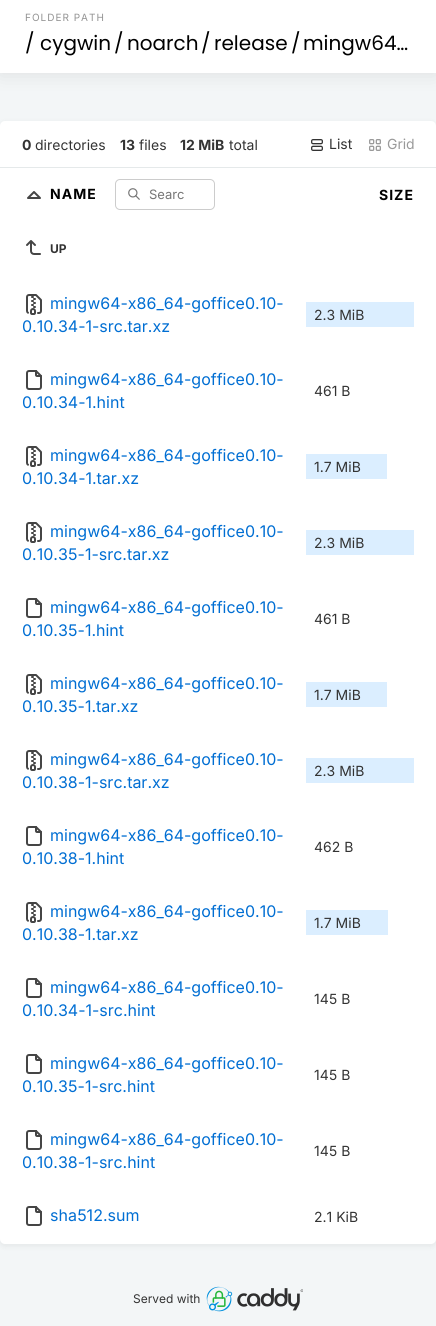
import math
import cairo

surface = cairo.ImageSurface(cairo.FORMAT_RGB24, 436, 1326)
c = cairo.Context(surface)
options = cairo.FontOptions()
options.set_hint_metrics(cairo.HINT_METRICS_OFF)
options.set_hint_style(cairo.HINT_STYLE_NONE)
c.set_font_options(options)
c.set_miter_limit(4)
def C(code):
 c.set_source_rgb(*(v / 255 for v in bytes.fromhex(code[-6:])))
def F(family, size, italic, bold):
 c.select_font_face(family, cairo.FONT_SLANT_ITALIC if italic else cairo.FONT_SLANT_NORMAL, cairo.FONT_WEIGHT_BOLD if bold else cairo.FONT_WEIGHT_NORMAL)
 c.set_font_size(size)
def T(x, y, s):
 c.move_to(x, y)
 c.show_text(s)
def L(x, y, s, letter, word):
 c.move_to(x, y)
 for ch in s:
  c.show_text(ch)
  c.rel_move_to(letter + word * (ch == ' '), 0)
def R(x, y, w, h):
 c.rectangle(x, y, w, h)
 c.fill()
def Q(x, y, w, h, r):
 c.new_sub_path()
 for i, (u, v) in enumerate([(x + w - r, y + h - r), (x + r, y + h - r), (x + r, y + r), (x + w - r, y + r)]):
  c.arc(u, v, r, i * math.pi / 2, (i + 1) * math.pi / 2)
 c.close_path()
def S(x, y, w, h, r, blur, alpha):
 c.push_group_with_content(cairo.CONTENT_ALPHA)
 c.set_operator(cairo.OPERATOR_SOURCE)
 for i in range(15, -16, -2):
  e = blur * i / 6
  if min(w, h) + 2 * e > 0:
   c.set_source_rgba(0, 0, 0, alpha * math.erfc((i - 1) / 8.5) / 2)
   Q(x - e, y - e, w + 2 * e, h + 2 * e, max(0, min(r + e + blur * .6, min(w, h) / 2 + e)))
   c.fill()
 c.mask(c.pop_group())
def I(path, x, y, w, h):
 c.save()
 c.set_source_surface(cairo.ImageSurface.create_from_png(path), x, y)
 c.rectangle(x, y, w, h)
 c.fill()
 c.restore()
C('f3f6f7')
c.paint()
C('000000')
S(0,-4,436,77,0,10,.1)
C('ffffff')
R(0,0,436,73)
F('Inter',10,0,0)
C('939393')
L(25,21,'FOLDER PATH',1,0)
F('Poppins',20,0,0)
C('000000')
T(25,50,'/')
T(40,50,'cygwin')
T(114,50,'/')
T(127,50,'noarch')
T(201,50,'/')
T(214,50,'release')
T(291,50,'/')
T(303,50,'mingw64…')
C('000000')
S(-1,122,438,1125,6,2.5,.05)
C('ffffff')
Q(0,121,436,1123,5)
c.fill()
C('e5e9ea')
R(0,167,436,1)
F('Inter',14,0,1)
C('333333')
T(22,150,'0')
F('Inter',14,0,0)
T(35,150,'directories')
F('Inter',14,0,1)
T(120,150,'13')
F('Inter',14,0,0)
T(139,150,'files')
F('Inter',14,0,1)
T(180,150,'12 MiB')
F('Inter',14,0,0)
T(229,150,'total')
I('1.png',311,139,12,12)
T(329,149,'List')
I('2.png',369,139,12,12)
C('9a9a9a')
T(387,149,'Grid')
c.new_path()
c.move_to(40,198)
c.line_to(34,192)
c.line_to(28,198)
c.line_to(40,198)
C('454545')
c.set_line_cap(cairo.LINE_CAP_ROUND)
c.set_line_join(cairo.LINE_JOIN_ROUND)
c.stroke()
F('Inter',14,0,1)
C('000000')
L(50,199,'NAME',1,0)
I('3.png',128,188,12,12)
Q(115.5,179.5,99,30,4.5)
C('cccccc')
c.set_line_width(1)
c.set_line_cap(cairo.LINE_CAP_BUTT)
c.set_line_join(cairo.LINE_JOIN_MITER)
c.stroke()
F('Inter',13,0,0)
C('757575')
T(149,199,'Searc')
F('Inter',14,0,1)
C('000000')
L(379,200,'SIZE',1,0)
I('4.png',26,240,15,15)
F('Inter',12,0,1)
C('333333')
T(50,253,'UP')
I('5.png',26,294,16,21)
F('Inter',16,0,0)
C('006ed3')
T(50,309,'mingw64-x86_64-goffice0.10-')
T(22,332,'0.10.34-1-src.tar.xz')
C('dbeeff')
R(306,302,108,25)
F('Inter',14,0,0)
C('333333')
T(314,320,'2.3 MiB')
I('6.png',26,370,16,20)
F('Inter',16,0,0)
C('006ed3')
T(50,385,'mingw64-x86_64-goffice0.10-')
T(22,408,'0.10.34-1.hint')
F('Inter',14,0,0)
C('333333')
T(314,396,'461 B')
I('5.png',26,446,16,21)
F('Inter',16,0,0)
C('006ed3')
T(50,461,'mingw64-x86_64-goffice0.10-')
T(22,484,'0.10.34-1.tar.xz')
C('dbeeff')
R(306,454,81,25)
F('Inter',14,0,0)
C('333333')
T(314,472,'1.7 MiB')
I('5.png',26,522,16,21)
F('Inter',16,0,0)
C('006ed3')
T(50,537,'mingw64-x86_64-goffice0.10-')
T(22,560,'0.10.35-1-src.tar.xz')
C('dbeeff')
R(306,530,108,25)
F('Inter',14,0,0)
C('333333')
T(314,548,'2.3 MiB')
I('6.png',26,598,16,20)
F('Inter',16,0,0)
C('006ed3')
T(50,613,'mingw64-x86_64-goffice0.10-')
T(22,636,'0.10.35-1.hint')
F('Inter',14,0,0)
C('333333')
T(314,624,'461 B')
I('5.png',26,674,16,21)
F('Inter',16,0,0)
C('006ed3')
T(50,689,'mingw64-x86_64-goffice0.10-')
T(22,712,'0.10.35-1.tar.xz')
C('dbeeff')
R(306,682,81,25)
F('Inter',14,0,0)
C('333333')
T(314,700,'1.7 MiB')
I('5.png',26,750,16,21)
F('Inter',16,0,0)
C('006ed3')
T(50,765,'mingw64-x86_64-goffice0.10-')
T(22,788,'0.10.38-1-src.tar.xz')
C('dbeeff')
R(306,758,108,25)
F('Inter',14,0,0)
C('333333')
T(314,776,'2.3 MiB')
I('6.png',26,826,16,20)
F('Inter',16,0,0)
C('006ed3')
T(50,841,'mingw64-x86_64-goffice0.10-')
T(22,864,'0.10.38-1.hint')
F('Inter',14,0,0)
C('333333')
T(314,852,'462 B')
I('5.png',26,902,16,21)
F('Inter',16,0,0)
C('006ed3')
T(50,917,'mingw64-x86_64-goffice0.10-')
T(22,940,'0.10.38-1.tar.xz')
C('dbeeff')
R(306,910,82,25)
F('Inter',14,0,0)
C('333333')
T(314,928,'1.7 MiB')
I('6.png',26,978,16,20)
F('Inter',16,0,0)
C('006ed3')
T(50,993,'mingw64-x86_64-goffice0.10-')
T(22,1016,'0.10.34-1-src.hint')
F('Inter',14,0,0)
C('333333')
T(314,1004,'145 B')
I('6.png',26,1054,16,20)
F('Inter',16,0,0)
C('006ed3')
T(50,1069,'mingw64-x86_64-goffice0.10-')
T(22,1092,'0.10.35-1-src.hint')
F('Inter',14,0,0)
C('333333')
T(314,1080,'145 B')
I('6.png',26,1130,16,20)
F('Inter',16,0,0)
C('006ed3')
T(50,1145,'mingw64-x86_64-goffice0.10-')
T(22,1168,'0.10.38-1-src.hint')
F('Inter',14,0,0)
C('333333')
T(314,1156,'145 B')
I('6.png',26,1206,16,20)
F('Inter',16,0,0)
C('006ed3')
T(50,1221,'sha512.sum')
F('Inter',14,0,0)
C('333333')
T(314,1222,'2.1 KiB')
F('Inter',12,0,0)
T(133,1303,'Served with')
I('7.png',206,1286,97,26)
surface.write_to_png('o.png')
